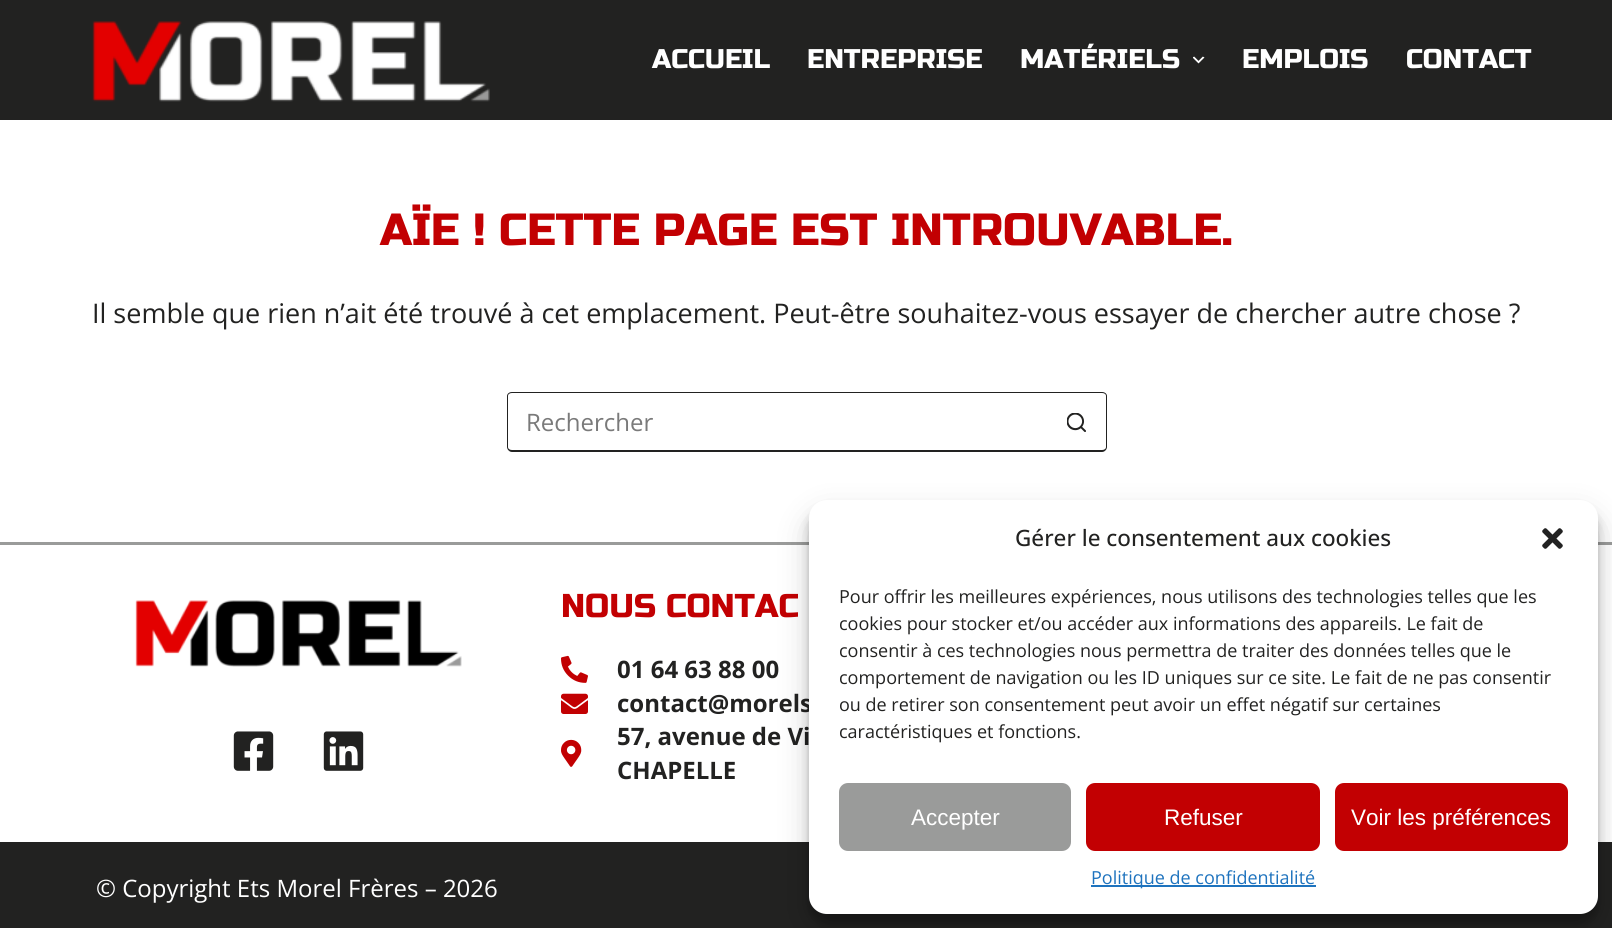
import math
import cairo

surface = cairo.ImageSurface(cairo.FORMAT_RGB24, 1612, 928)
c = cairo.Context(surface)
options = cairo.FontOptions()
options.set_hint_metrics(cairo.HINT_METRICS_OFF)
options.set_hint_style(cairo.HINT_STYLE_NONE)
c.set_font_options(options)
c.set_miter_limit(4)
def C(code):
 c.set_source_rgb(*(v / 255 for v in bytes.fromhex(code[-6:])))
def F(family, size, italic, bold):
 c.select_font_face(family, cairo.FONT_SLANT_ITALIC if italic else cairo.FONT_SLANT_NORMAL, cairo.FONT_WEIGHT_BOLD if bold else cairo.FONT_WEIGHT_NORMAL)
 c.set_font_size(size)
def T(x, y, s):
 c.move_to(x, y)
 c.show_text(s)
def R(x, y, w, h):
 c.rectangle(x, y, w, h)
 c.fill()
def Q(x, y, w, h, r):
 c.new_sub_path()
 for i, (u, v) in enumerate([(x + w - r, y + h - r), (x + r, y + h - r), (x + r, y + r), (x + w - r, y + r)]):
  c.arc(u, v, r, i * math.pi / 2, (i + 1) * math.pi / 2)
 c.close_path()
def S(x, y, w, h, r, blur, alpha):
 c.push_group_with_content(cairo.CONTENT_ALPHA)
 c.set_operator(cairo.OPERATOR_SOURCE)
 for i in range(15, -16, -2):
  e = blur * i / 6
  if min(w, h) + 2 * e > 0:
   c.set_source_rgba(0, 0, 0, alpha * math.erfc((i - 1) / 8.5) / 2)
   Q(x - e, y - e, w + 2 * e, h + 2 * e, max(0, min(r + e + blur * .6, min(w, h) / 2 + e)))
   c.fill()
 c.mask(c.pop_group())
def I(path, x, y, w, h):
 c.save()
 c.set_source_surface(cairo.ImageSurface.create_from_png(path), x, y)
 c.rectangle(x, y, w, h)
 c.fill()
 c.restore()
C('ffffff')
c.paint()
C('222221')
R(0,0,1612,120)
I('1.png',92,21,398,81)
F('Russo One',27,0,0)
C('ffffff')
T(652,68,'ACCUEIL')
T(807,68,'ENTREPRISE')
T(1020,68,'MATÉRIELS')
I('2.png',1193,56,12,8)
T(1242,68,'EMPLOIS')
T(1406,68,'CONTACT')
F('Russo One',45,0,0)
C('c20002')
T(380,245,'AÏE ! CETTE PAGE EST INTROUVABLE.')
F('Open Sans',27,0,0)
C('222221')
T(92,323,'Il semble que rien n’ait été trouvé à cet emplacement. Peut-être souhaitez-vous essayer de chercher autre chose ?')
c.set_fill_rule(cairo.FILL_RULE_EVEN_ODD)
c.new_path()
c.move_to(512,392)
c.line_to(1047,392)
c.line_to(1047,452)
c.line_to(512,452)
c.curve_to(509,452,507,449,507,447)
c.line_to(507,396)
c.curve_to(507,394,509,392,512,392)
c.close_path()
c.move_to(512,393)
c.line_to(1047,393)
c.line_to(1047,450)
c.line_to(512,450)
c.curve_to(510,450,508,449,508,447)
c.line_to(508,396)
c.curve_to(508,394,510,393,512,393)
c.close_path()
c.fill()
F('Open Sans',24,0,0)
C('7a7a7a')
T(526,431,'Rechercher')
C('222221')
c.new_path()
c.move_to(1047,392)
c.line_to(1102,392)
c.curve_to(1105,392,1107,394,1107,396)
c.line_to(1107,447)
c.curve_to(1107,449,1105,452,1102,452)
c.line_to(1047,452)
c.close_path()
c.move_to(1047,393)
c.line_to(1102,393)
c.curve_to(1104,393,1106,394,1106,396)
c.line_to(1106,447)
c.curve_to(1106,449,1104,450,1102,450)
c.line_to(1047,450)
c.close_path()
c.fill()
I('3.png',1067,413,19,19)
C('9a9b9a')
R(0,542,1612,3)
I('4.png',135,600,327,67)
I('5.png',233,731,41,40)
I('6.png',323,731,41,40)
F('Russo One',33,0,0)
C('c20002')
T(561,617,'NOUS CONTAC')
I('7.png',561,655,27,28)
F('Open Sans',24,0,1)
C('222221')
T(617,678,'01 64 63 88 00')
I('8.png',561,693,27,21)
T(617,712,'contact@morels')
I('9.png',561,739,21,28)
T(617,745,'57, avenue de Vi')
T(617,779,'CHAPELLE')
R(0,842,1612,86)
F('Open Sans',24,0,0)
C('ffffff')
T(96,897,'© Copyright Ets Morel Frères – 2026')
C('000000')
S(809,509,789,414,18,4.5,.23)
S(809,515,789,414,18,15,.19)
C('ffffff')
Q(809,500,789,414,18)
c.fill()
F('Open Sans Medium',22.5,0,0)
C('222221')
T(1015,546,'Gérer le consentement aux cookies')
I('10.png',1542,528,21,21)
F('Open Sans',18,0,0)
T(839,603,'Pour offrir les meilleures expériences, nous utilisons des technologies telles que les')
T(839,630,'cookies pour stocker et/ou accéder aux informations des appareils. Le fait de')
T(839,657,'consentir à ces technologies nous permettra de traiter des données telles que le')
T(839,684,'comportement de navigation ou les ID uniques sur ce site. Le fait de ne pas consentir')
T(839,711,'ou de retirer son consentement peut avoir un effet négatif sur certaines')
T(839,738,'caractéristiques et fonctions.')
C('9a9b9a')
Q(840,784,230,66,8)
c.fill_preserve()
c.stroke()
F('Liberation Sans',22.5,0,0)
C('ffffff')
T(911,825,'Accepter')
C('c20002')
Q(1087,784,232,66,8)
c.fill_preserve()
c.stroke()
C('ffffff')
T(1164,825,'Refuser')
C('c20002')
Q(1336,784,231,66,8)
c.fill_preserve()
c.stroke()
C('ffffff')
T(1351,825,'Voir les préférences')
C('1e73be')
R(1091,885,225,2)
F('Open Sans',18,0,0)
T(1091,884,'Politique de confidentialité')
surface.write_to_png('o.png')
